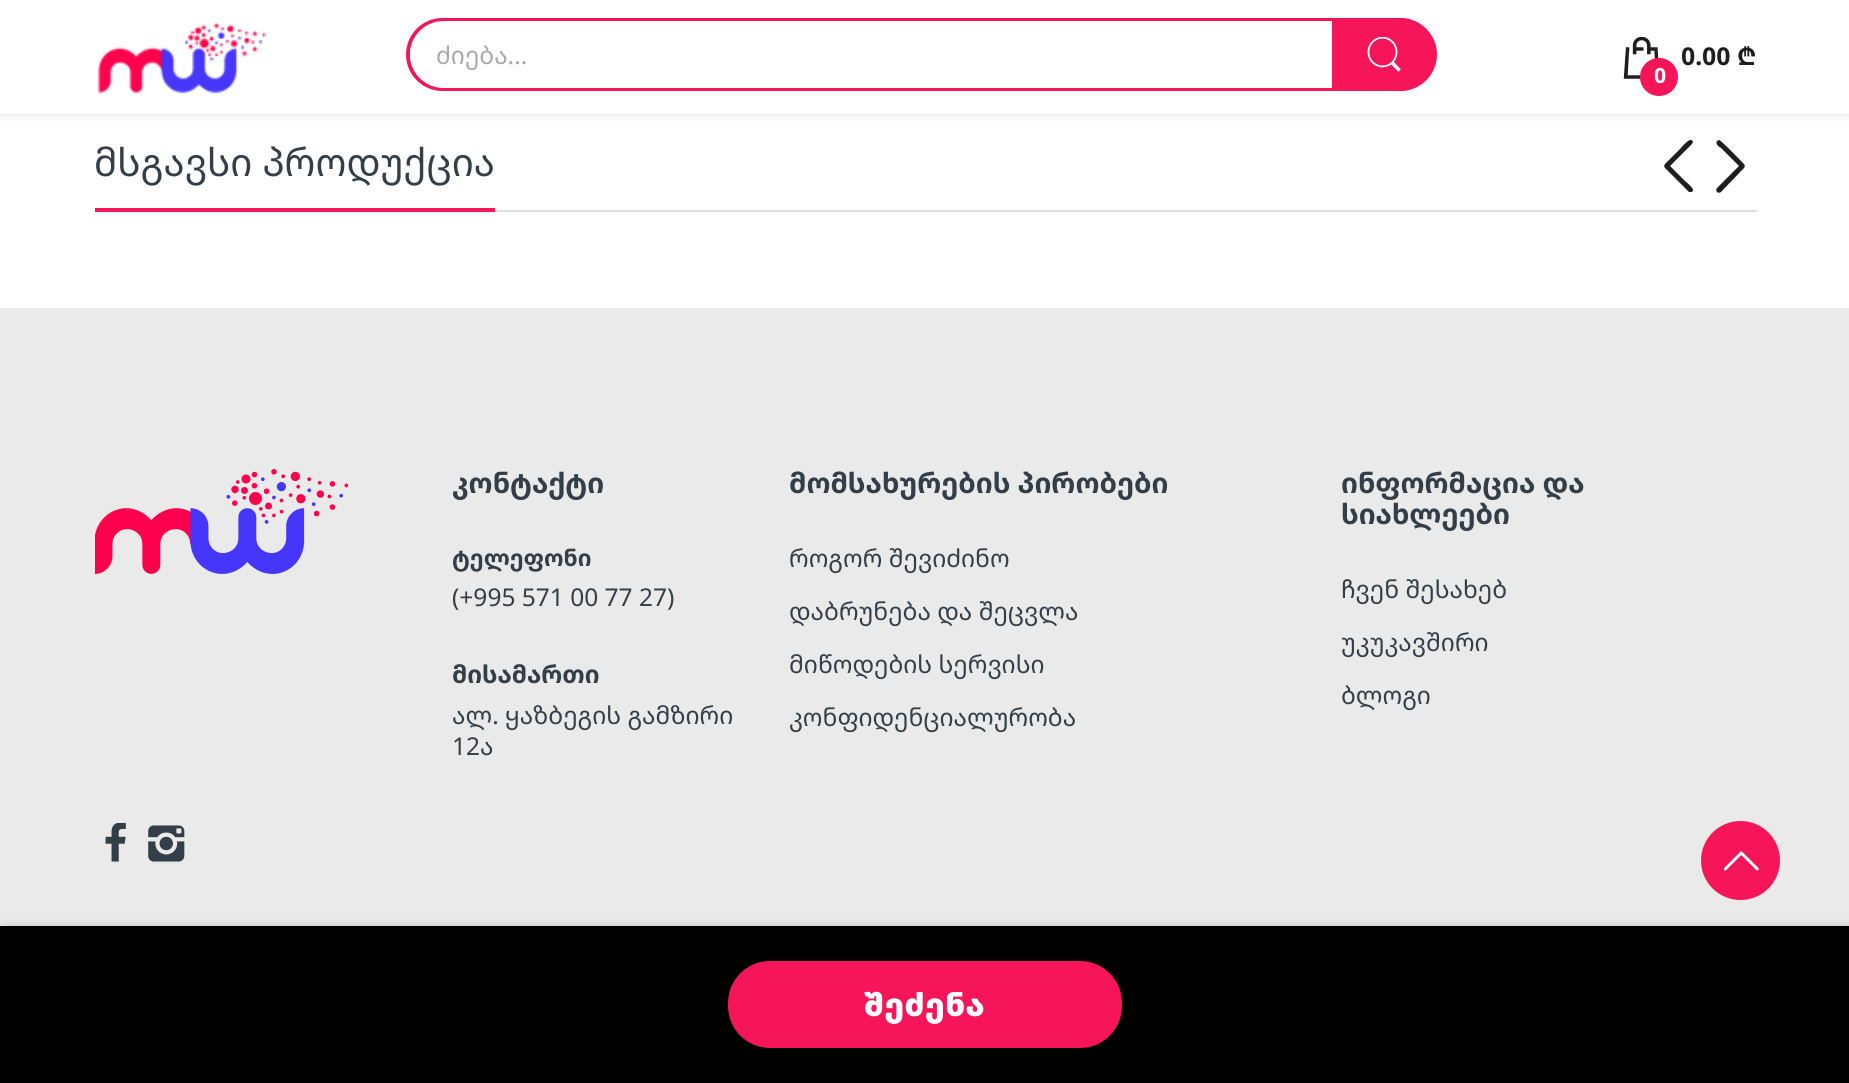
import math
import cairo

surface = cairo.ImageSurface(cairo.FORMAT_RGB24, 1849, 1083)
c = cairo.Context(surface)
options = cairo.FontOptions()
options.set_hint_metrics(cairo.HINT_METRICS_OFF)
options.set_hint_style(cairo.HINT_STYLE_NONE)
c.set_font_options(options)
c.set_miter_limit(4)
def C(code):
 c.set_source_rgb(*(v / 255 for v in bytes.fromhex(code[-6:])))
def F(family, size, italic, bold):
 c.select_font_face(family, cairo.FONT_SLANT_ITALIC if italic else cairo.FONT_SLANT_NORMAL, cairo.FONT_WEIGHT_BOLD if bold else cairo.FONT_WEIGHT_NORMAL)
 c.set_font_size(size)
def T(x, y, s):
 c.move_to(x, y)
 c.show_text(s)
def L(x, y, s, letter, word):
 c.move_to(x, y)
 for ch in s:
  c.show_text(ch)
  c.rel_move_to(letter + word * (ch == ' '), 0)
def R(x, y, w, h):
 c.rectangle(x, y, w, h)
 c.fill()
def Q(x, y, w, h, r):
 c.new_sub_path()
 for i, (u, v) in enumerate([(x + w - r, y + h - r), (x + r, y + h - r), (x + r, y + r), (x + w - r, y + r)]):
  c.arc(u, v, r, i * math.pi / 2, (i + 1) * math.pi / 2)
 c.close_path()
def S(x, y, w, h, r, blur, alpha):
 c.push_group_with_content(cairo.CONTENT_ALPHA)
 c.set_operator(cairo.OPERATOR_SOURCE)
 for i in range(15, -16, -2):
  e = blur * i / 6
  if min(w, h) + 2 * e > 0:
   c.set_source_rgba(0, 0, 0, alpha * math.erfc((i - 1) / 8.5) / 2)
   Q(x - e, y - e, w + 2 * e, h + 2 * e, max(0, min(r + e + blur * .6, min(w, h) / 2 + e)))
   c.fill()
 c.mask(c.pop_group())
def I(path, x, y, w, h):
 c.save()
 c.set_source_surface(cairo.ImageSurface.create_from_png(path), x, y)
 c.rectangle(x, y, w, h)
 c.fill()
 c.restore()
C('ffffff')
c.paint()
C('202124')
S(0,0,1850,114,0,5,.15)
C('ffffff')
R(0,0,1849,114)
I('1.png',97,22,170,72)
Q(408,20,1025,69,34.5)
C('f51558')
c.set_line_width(4)
c.stroke()
C('ffffff')
Q(410,21,1022,67,33.5)
c.fill()
F('Noto Sans Georgian',24.5,0,0)
C('a9a9a9')
T(436,64,'ძიება...')
C('f51558')
c.new_path()
c.move_to(1333,19)
c.line_to(1400.5,19)
c.curve_to(1420,19,1436,35,1436,54.5)
c.curve_to(1436,74,1420,90,1400.5,90)
c.line_to(1333,90)
c.close_path()
c.fill_preserve()
c.set_line_width(2)
c.stroke()
I('2.png',1367,37,34,35)
F('Noto Sans Georgian',24.5,0,1)
C('1f1d1d')
T(1681,65,'0.00 ₾')
I('3.png',1623,37,36,42)
C('f51558')
c.arc(1659,77,19,0,2 * math.pi)
c.fill()
F('Noto Sans Georgian',21,0,1)
C('ffffff')
T(1654,83,'0')
C('dddddd')
R(495,210,1262,2)
F('Noto Sans Georgian',38.5,0,0)
C('333e48')
T(94,176,'მსგავსი პროდუქცია')
C('f51558')
R(95,208,400,4)
C('1f1d1d')
c.new_path()
c.move_to(1665,168)
c.line_to(1689,192)
c.line_to(1691,192)
c.curve_to(1698,191,1685,181,1685,181)
c.line_to(1670,166)
c.line_to(1692,144)
c.line_to(1693,142)
c.curve_to(1691,135,1681,148,1680,149)
c.line_to(1665,164)
c.curve_to(1664,165,1664,167,1665,168)
c.close_path()
c.fill()
c.new_path()
c.move_to(1744,164)
c.curve_to(1741,161,1721,140,1719,140)
c.line_to(1717,141)
c.curve_to(1715,144,1719,147,1721,148)
c.line_to(1739,166)
c.line_to(1717,188)
c.curve_to(1716,189,1716,191,1717,192)
c.curve_to(1718,193,1720,193,1721,192)
c.line_to(1744,168)
c.curve_to(1745,167,1745,165,1744,164)
c.close_path()
c.fill()
C('eaeaea')
R(0,308,1849,618)
C('000000')
S(5,926,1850,157,0,5,.16)
C('000000')
R(0,926,1849,157)
C('f51558')
Q(728,961,394,87,42)
c.fill()
F('Noto Sans Georgian Black',31.5,0,0)
C('ffffff')
L(864,1016,'შეძენა',.5,0)
I('4.png',95,469,253,105)
F('Noto Sans Georgian',28,0,1)
C('333e48')
T(452,493,'კონტაქტი')
F('Noto Sans Georgian',22.75,0,1)
T(452,566,'ტელეფონი')
F('Noto Sans Georgian',24.5,0,0)
T(452,606,'(+995 571 00 77 27)')
F('Noto Sans Georgian',24.5,0,1)
T(452,683,'მისამართი')
F('Noto Sans Georgian',24.5,0,0)
T(452,724,'ალ. ყაზბეგის გამზირი')
T(452,755,'12ა')
I('5.png',105,823,21,39)
I('6.png',148,825,37,37)
F('Noto Sans Georgian',28,0,1)
T(789,493,'მომსახურების პირობები')
F('Noto Sans Georgian',24.5,0,0)
T(789,567,'როგორ შევიძინო')
T(789,620,'დაბრუნება და შეცვლა')
T(789,673,'მიწოდების სერვისი')
T(789,726,'კონფიდენციალურობა')
F('Noto Sans Georgian',28,0,1)
T(1341,493,'ინფორმაცია და')
T(1341,524,'სიახლეები')
F('Noto Sans Georgian',24.5,0,0)
T(1341,598,'ჩვენ შესახებ')
T(1341,651,'უკუკავშირი')
T(1341,704,'ბლოგი')
C('f51558')
c.new_path()
c.arc(1740.5,860.5,39.5,0,2 * math.pi)
c.fill()
I('7.png',1724,851,35,20)
surface.write_to_png('o.png')
